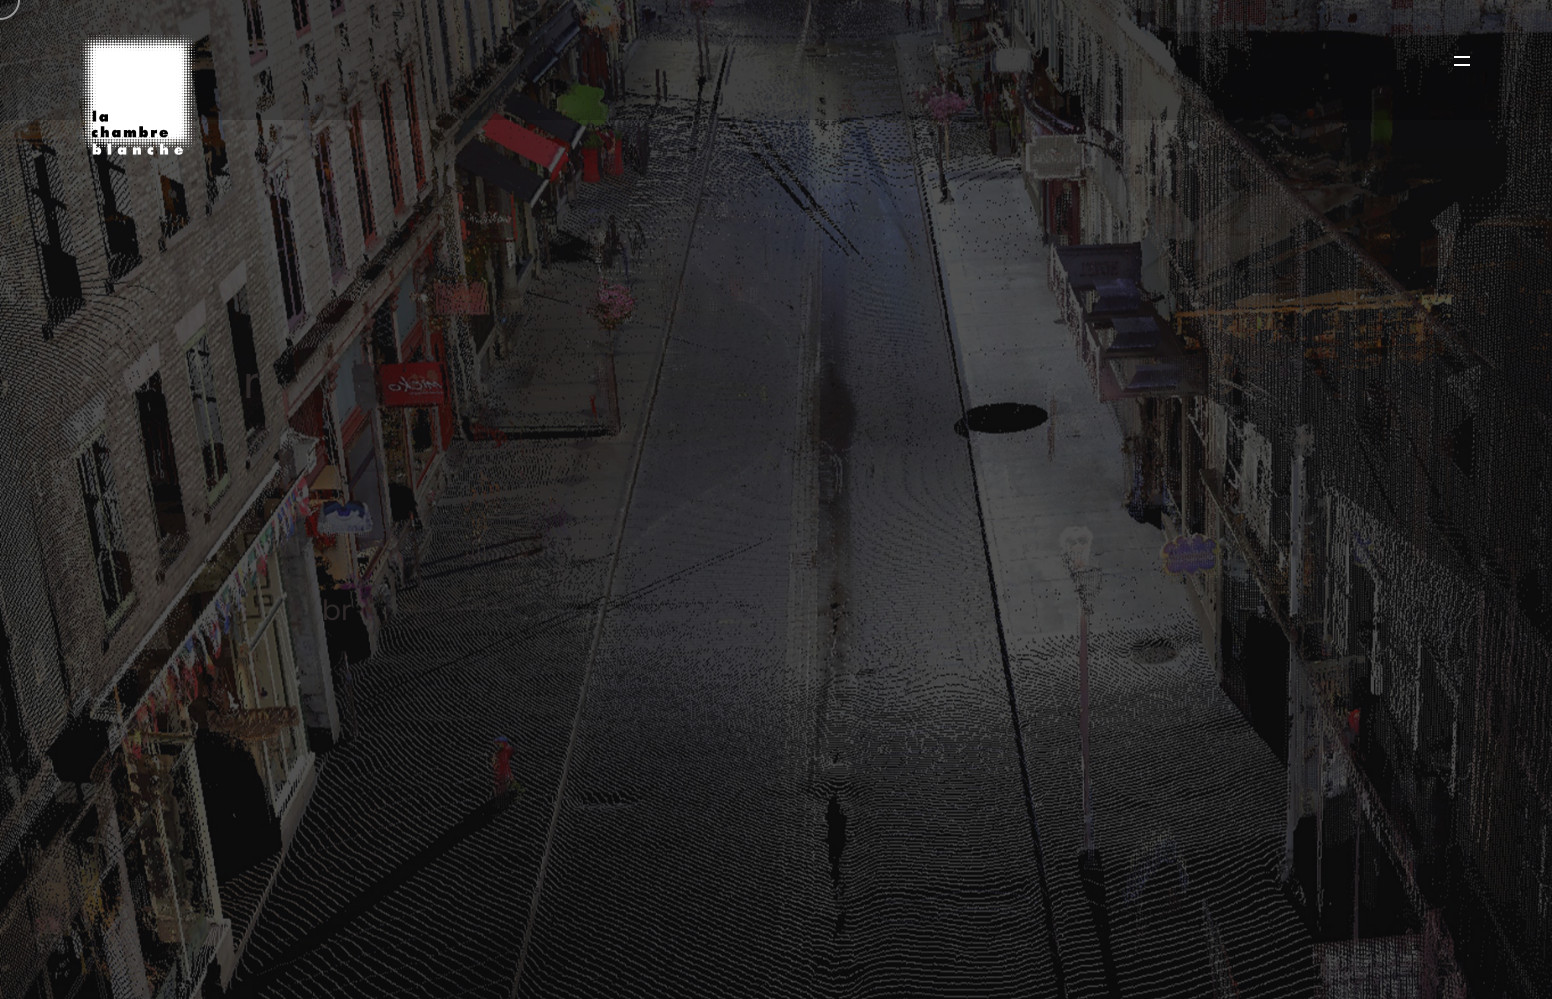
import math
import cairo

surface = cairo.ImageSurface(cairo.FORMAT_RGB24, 1552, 999)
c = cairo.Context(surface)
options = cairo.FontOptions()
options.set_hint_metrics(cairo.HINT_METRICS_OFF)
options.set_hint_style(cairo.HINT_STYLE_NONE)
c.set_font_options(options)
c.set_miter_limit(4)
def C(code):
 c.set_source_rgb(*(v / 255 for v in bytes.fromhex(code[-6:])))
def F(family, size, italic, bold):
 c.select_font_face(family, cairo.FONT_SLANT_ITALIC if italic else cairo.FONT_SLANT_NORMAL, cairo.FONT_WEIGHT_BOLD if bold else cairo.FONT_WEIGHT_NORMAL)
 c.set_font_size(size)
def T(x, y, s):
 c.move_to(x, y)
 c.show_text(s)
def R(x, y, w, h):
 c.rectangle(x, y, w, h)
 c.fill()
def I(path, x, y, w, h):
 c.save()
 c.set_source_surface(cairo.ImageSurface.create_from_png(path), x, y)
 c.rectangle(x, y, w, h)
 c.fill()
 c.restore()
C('171717')
c.paint()
I('1.png',0,0,1552,999)
c.set_source_rgba(0,0,0,0.2)
R(0,0,1552,120)
c.arc(0,0,19,0,2 * math.pi)
C('999999')
c.stroke()
I('2.png',80,35,117,120)
C('ffffff')
R(1454,56,16,2)
R(1454,64,16,2)
F('Poppins',44,0,0)
C('2e2828')
T(243,398,'r')
F('Poppins',28,0,0)
T(322,620,'br')
surface.write_to_png('o.png')
